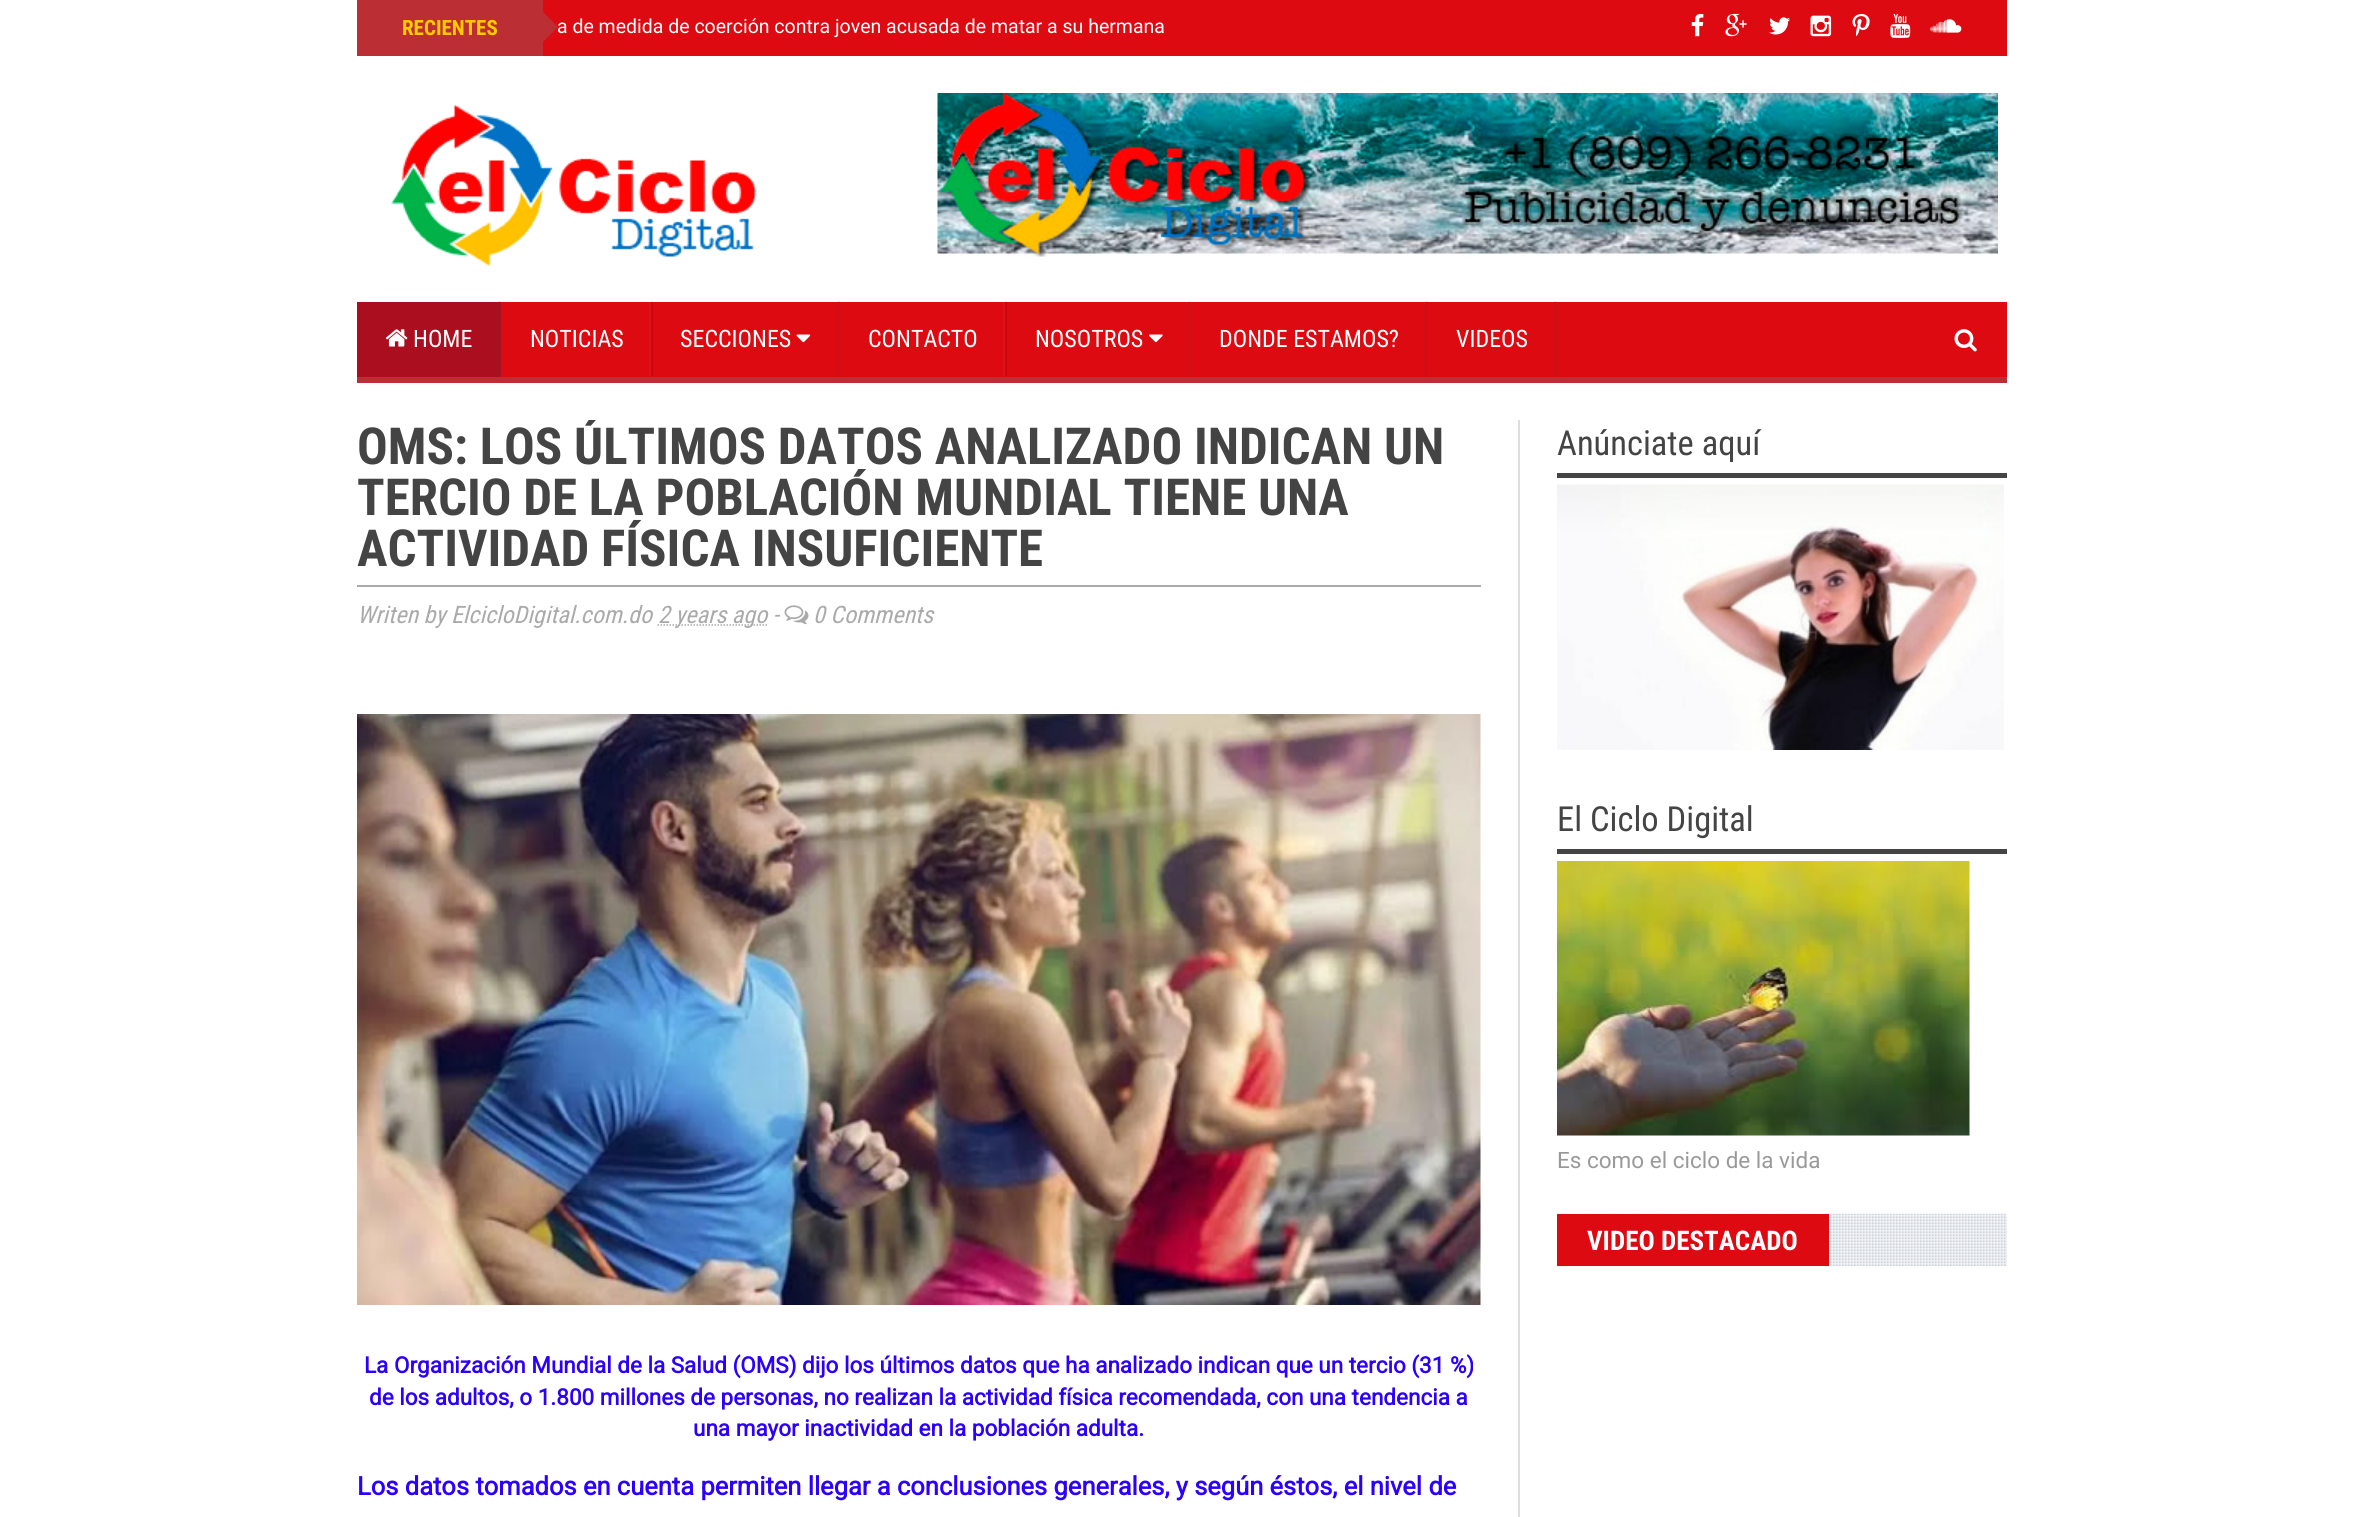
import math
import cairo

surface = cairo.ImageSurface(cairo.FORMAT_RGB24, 2364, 1517)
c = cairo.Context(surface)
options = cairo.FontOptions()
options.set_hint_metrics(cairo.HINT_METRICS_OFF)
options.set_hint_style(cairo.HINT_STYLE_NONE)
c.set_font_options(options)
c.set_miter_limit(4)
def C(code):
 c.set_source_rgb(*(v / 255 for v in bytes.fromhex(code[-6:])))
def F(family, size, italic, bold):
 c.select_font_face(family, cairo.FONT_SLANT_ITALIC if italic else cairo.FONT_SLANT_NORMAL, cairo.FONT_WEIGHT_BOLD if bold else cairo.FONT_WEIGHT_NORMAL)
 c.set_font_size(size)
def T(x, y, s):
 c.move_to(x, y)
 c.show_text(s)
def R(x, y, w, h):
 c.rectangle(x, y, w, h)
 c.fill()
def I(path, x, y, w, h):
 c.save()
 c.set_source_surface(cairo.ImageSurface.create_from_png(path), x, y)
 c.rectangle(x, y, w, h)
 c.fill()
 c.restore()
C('ffffff')
c.paint()
C('ececec')
R(1554,301,3,1)
R(1425,301,3,1)
C('efefef')
R(1188,301,3,1)
C('ececec')
R(837,301,3,1)
C('e1e1e1')
R(498,301,3,1)
C('de0a11')
R(543,0,1464,56)
C('bb2e33')
R(357,0,186,56)
F('Roboto Condensed',21,0,1)
C('ffcc00')
T(402,35,'RECIENTES')
F('Roboto',19.5,0,0)
C('ffffff')
T(557,33,'a de medida de coerción contra joven acusada de matar a su hermana')
C('bb2e33')
c.new_path()
c.move_to(543,42)
c.line_to(543,12)
c.line_to(558,27)
c.close_path()
c.fill()
I('1.png',1691,13,13,24)
I('2.png',1725,13,22,24)
I('3.png',1769,17,21,18)
I('4.png',1810,15,22,22)
I('5.png',1852,13,18,24)
I('6.png',1890,13,21,25)
I('7.png',1930,19,32,14)
I('8.png',391,104,366,162)
I('9.png',937,93,1061,164)
C('de0a11')
R(501,302,1506,75)
C('ce0f15')
R(1554,302,3,75)
R(1425,302,3,75)
C('d11016')
R(1188,302,3,75)
C('ce0f15')
R(837,302,3,75)
C('bb2e33')
R(357,377,1650,6)
C('aa0e1f')
R(357,302,141,75)
C('a21423')
R(498,302,3,75)
I('10.png',385,329,23,18)
F('Roboto Condensed',24,0,0)
C('ffffff')
T(413,347,'HOME')
I('11.png',649,301,4,76)
T(530,347,'NOTICIAS')
T(680,347,'SECCIONES')
I('12.png',796,334,15,9)
I('11.png',1003,301,4,76)
T(868,347,'CONTACTO')
T(1035,347,'NOSOTROS')
I('13.png',1149,334,14,9)
T(1219,347,'DONDE ESTAMOS?')
T(1456,347,'VIDEOS')
I('14.png',1954,329,23,23)
C('dddddd')
R(1518,420,2,1097)
c.save()
c.rectangle(357,420,1163,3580)
c.clip()
F('Roboto Condensed',51,0,1)
C('444444')
T(357,464,'OMS: LOS ÚLTIMOS DATOS ANALIZADO INDICAN UN')
c.restore()
F('Roboto Condensed',51,0,1)
C('444444')
T(357,515,'TERCIO DE LA POBLACIÓN MUNDIAL TIENE UNA')
T(357,566,'ACTIVIDAD FÍSICA INSUFICIENTE')
C('aaaaaa')
R(357,585,1124,2)
F('Roboto Condensed',24,1,0)
T(357,623,'Writen by ElcicloDigital.com.do')
c.new_path()
c.move_to(657.5,625)
c.line_to(767,625)
c.set_line_width(1.5)
c.set_dash([1.5,1.5])
c.stroke()
T(658,623,'2 years ago -')
I('15.png',784,605,25,20)
T(813,623,'0 Comments')
I('16.png',357,714,1124,591)
F('Roboto',22.5,0,1)
C('2b00fe')
T(364,1373,'La Organización Mundial de la Salud (OMS) dijo los últimos datos que ha analizado indican que un tercio (31 %)')
T(369,1405,'de los adultos, o 1.800 millones de personas, no realizan la actividad física recomendada, con una tendencia a')
T(693,1436,'una mayor inactividad en la población adulta.')
F('Roboto',25.5,0,1)
T(357,1495,'Los datos tomados en cuenta permiten llegar a conclusiones generales, y según éstos, el nivel de')
C('444444')
R(1557,473,450,5)
F('Roboto Condensed',34.5,0,0)
T(1557,455,'Anúnciate aquí')
I('17.png',1557,484,447,266)
R(1557,849,450,5)
T(1557,831,'El Ciclo Digital')
I('18.png',1557,861,413,275)
F('Roboto',22.5,0,0)
C('999999')
T(1557,1168,'Es como el ciclo de la vida')
C('f1f4f9')
R(1829,1214,178,52)
I('19.png',1557,1213,450,53)
C('de0a11')
R(1557,1214,272,52)
F('Roboto Condensed',27,0,1)
C('ffffff')
T(1587,1250,'VIDEO DESTACADO')
surface.write_to_png('o.png')
